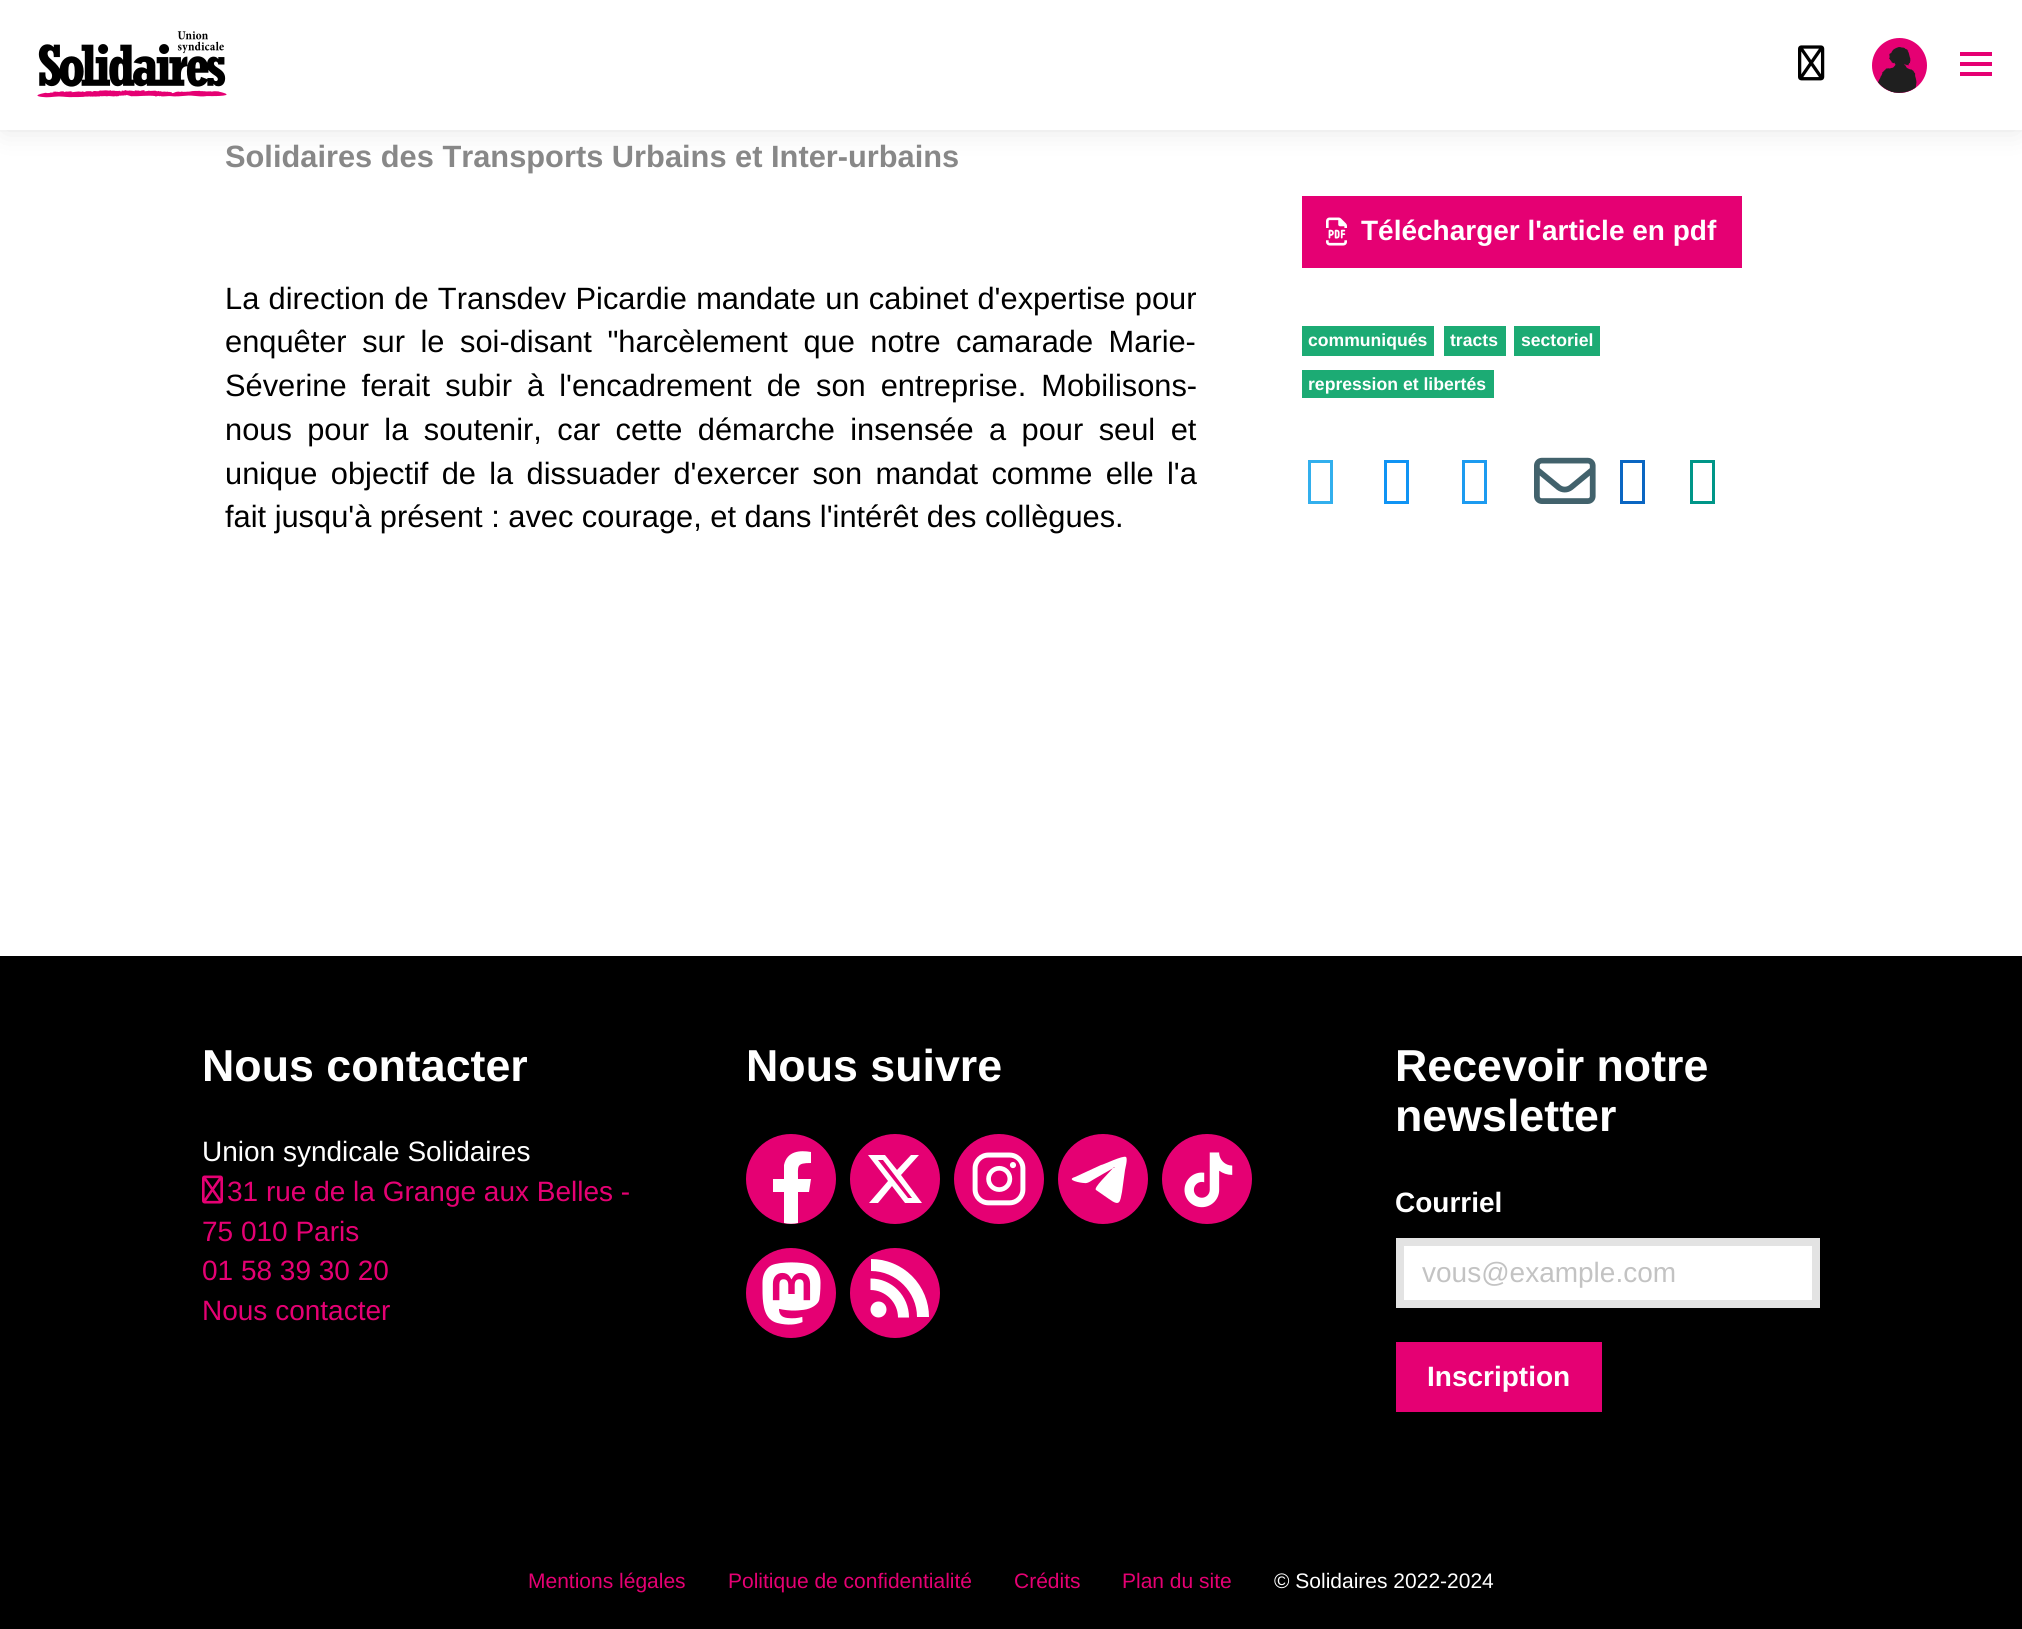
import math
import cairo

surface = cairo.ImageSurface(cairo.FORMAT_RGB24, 2022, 1629)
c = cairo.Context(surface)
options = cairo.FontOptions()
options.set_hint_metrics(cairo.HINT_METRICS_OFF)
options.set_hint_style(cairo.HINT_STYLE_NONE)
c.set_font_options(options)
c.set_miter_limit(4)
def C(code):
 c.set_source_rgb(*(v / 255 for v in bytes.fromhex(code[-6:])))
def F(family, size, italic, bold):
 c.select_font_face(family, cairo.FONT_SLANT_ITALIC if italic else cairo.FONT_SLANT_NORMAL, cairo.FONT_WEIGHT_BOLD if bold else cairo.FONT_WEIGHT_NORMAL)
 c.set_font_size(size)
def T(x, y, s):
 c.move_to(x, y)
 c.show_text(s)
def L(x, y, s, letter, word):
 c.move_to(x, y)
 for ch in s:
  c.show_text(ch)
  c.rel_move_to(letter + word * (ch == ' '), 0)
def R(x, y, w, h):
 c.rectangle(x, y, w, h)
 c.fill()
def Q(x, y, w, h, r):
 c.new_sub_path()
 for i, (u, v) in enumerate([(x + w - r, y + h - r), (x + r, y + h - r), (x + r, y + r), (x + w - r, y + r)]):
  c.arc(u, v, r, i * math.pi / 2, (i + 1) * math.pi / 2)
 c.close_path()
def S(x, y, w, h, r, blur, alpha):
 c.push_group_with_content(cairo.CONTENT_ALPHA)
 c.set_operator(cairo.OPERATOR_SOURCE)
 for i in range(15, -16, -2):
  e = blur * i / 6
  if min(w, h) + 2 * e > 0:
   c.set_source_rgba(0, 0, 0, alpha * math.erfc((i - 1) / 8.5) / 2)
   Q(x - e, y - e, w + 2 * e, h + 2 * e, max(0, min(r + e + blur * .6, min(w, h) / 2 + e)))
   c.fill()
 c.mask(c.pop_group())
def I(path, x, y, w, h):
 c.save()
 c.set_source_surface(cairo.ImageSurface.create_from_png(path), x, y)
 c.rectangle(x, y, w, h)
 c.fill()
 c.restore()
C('ffffff')
c.paint()
c.rectangle(-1,-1,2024,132)
C('fcfcfc')
c.stroke()
C('000000')
S(4,6,2014,124,0,14,.1)
C('ffffff')
R(0,0,2022,130)
I('1.png',37,31,190,67)
I('2.png',1798,45,27,36)
I('3.png',1872,38,55,55)
C('e50073')
R(1960,52,32,4)
R(1960,62,32,4)
R(1960,72,32,4)
F('Liberation Sans',30.8,0,1)
C('888888')
T(225,167,'Solidaires des Transports Urbains et Inter-urbains')
F('Liberation Sans',30.8,0,0)
C('000000')
L(225,309,'La direction de Transdev Picardie mandate un cabinet d\'expertise pour',0,.75)
L(225,352,'enquêter sur le soi-disant "harcèlement que notre camarade Marie-',0,7)
L(225,396,'Séverine ferait subir à l\'encadrement de son entreprise. Mobilisons-',0,6.5)
L(225,440,'nous pour la soutenir, car cette démarche insensée a pour seul et',0,6.9)
L(225,484,'unique objectif de la dissuader d\'exercer son mandat comme elle l\'a',0,4.75)
T(225,527,'fait jusqu\'à présent : avec courage, et dans l\'intérêt des collègues.')
C('e50073')
R(1302,196,440,72)
I('4.png',1326,217,21,29)
F('Liberation Sans',28,0,1)
C('ffffff')
T(1361,240,'Télécharger l\'article en pdf')
C('1cab74')
R(1302,326,132,30)
F('Liberation Sans',17.6,0,1)
C('ffffff')
T(1308,346,'communiqués')
C('1cab74')
R(1444,326,62,30)
C('ffffff')
T(1450,346,'tracts')
C('1cab74')
R(1514,326,86,30)
C('ffffff')
T(1521,346,'sectoriel')
C('1cab74')
R(1302,370,192,28)
C('ffffff')
T(1308,390,'repression et libertés')
C('32afed')
c.new_path()
c.move_to(1308,504)
c.line_to(1308,460)
c.line_to(1333,460)
c.line_to(1333,504)
c.close_path()
c.move_to(1311,501)
c.line_to(1330,501)
c.line_to(1330,463)
c.line_to(1311,463)
c.close_path()
c.fill()
C('1094f4')
c.new_path()
c.move_to(1384,504)
c.line_to(1384,460)
c.line_to(1409,460)
c.line_to(1409,504)
c.close_path()
c.move_to(1387,501)
c.line_to(1406,501)
c.line_to(1406,463)
c.line_to(1387,463)
c.close_path()
c.fill()
C('1d9bf0')
c.new_path()
c.move_to(1462,504)
c.line_to(1462,460)
c.line_to(1487,460)
c.line_to(1487,504)
c.close_path()
c.move_to(1465,501)
c.line_to(1484,501)
c.line_to(1484,463)
c.line_to(1465,463)
c.close_path()
c.fill()
I('5.png',1534,457,62,47)
C('0a66c2')
c.new_path()
c.move_to(1620,504)
c.line_to(1620,460)
c.line_to(1645,460)
c.line_to(1645,504)
c.close_path()
c.move_to(1623,501)
c.line_to(1642,501)
c.line_to(1642,463)
c.line_to(1623,463)
c.close_path()
c.fill()
C('009688')
c.new_path()
c.move_to(1690,504)
c.line_to(1690,460)
c.line_to(1715,460)
c.line_to(1715,504)
c.close_path()
c.move_to(1693,501)
c.line_to(1712,501)
c.line_to(1712,463)
c.line_to(1693,463)
c.close_path()
c.fill()
C('000000')
R(0,956,2022,673)
F('Liberation Sans',44.75,0,1)
C('ffffff')
T(202,1081,'Nous contacter')
F('Liberation Sans',28,0,0)
T(202,1161,'Union syndicale Solidaires')
I('6.png',202,1175,21,29)
C('e50073')
T(227,1201,'31 rue de la Grange aux Belles -')
T(202,1241,'75 010 Paris')
T(202,1280,'01 58 39 30 20')
T(202,1320,'Nous contacter')
F('Liberation Sans',44.75,0,1)
C('ffffff')
T(746,1081,'Nous suivre')
C('e50073')
c.new_path()
c.arc(791,1179,45,0,2 * math.pi)
c.fill()
C('ffffff')
c.new_path()
c.move_to(809,1192)
c.line_to(811,1179)
c.line_to(798,1179)
c.curve_to(798,1166,796,1163,811,1163)
c.line_to(811,1152)
c.curve_to(800,1150,787,1151,784,1165)
c.line_to(784,1179)
c.line_to(773,1179)
c.line_to(773,1192)
c.line_to(784,1192)
c.line_to(784,1223)
c.curve_to(789,1224,793,1224,798,1223)
c.line_to(798,1192)
c.close_path()
c.fill()
C('e50073')
c.arc(895,1179,45,0,2 * math.pi)
c.fill()
C('ffffff')
c.new_path()
c.move_to(910,1155)
c.line_to(919,1155)
c.line_to(901,1175)
c.line_to(922,1203)
c.line_to(905,1203)
c.line_to(892,1186)
c.line_to(878,1203)
c.line_to(869,1203)
c.line_to(888,1181)
c.line_to(868,1155)
c.line_to(885,1155)
c.line_to(897,1170)
c.line_to(911,1155)
c.close_path()
c.move_to(908,1198)
c.line_to(912,1198)
c.line_to(883,1160)
c.line_to(878,1160)
c.close_path()
c.fill()
I('7.png',954,1134,90,90)
C('e50073')
c.arc(1103,1179,45,0,2 * math.pi)
c.fill()
C('ffffff')
c.set_fill_rule(cairo.FILL_RULE_EVEN_ODD)
c.new_path()
c.move_to(1075,1177)
c.line_to(1101,1165)
c.curve_to(1103,1165,1123,1155,1126,1157)
c.curve_to(1128,1159,1125,1169,1125,1170)
c.line_to(1122,1192)
c.curve_to(1120,1202,1120,1207,1109,1199)
c.line_to(1096,1190)
c.curve_to(1093,1188,1108,1174,1114,1167)
c.line_to(1115,1167)
c.line_to(1096,1178)
c.curve_to(1092,1180,1088,1184,1084,1183)
c.curve_to(1081,1183,1065,1180,1075,1177)
c.close_path()
c.fill()
I('8.png',1162,1134,90,90)
I('9.png',746,1248,90,90)
C('e50073')
c.arc(895,1293,45,0,2 * math.pi)
c.fill()
C('ffffff')
c.set_fill_rule(cairo.FILL_RULE_WINDING)
c.new_path()
c.move_to(912,1276)
c.curve_to(901,1265,886,1259,871,1259)
c.line_to(871,1271)
c.curve_to(896,1271,917,1292,917,1317)
c.line_to(929,1317)
c.curve_to(929,1302,923,1287,912,1276)
c.close_path()
c.fill()
c.new_path()
c.move_to(870.5,1278.5)
c.line_to(870.5,1290)
c.curve_to(885.5,1290,898,1302.5,898,1317.5)
c.line_to(909,1317.5)
c.curve_to(909,1296,892,1278.5,870.5,1278.5)
c.close_path()
c.fill()
c.arc(878.5,1309.5,8,0,2 * math.pi)
c.fill()
T(1395,1081,'Recevoir notre')
T(1395,1131,'newsletter')
F('Liberation Sans',28,0,1)
T(1395,1212,'Courriel')
c.rectangle(1400,1242,416,62)
c.fill_preserve()
C('e3e3e3')
c.set_line_width(8)
c.stroke()
F('Liberation Sans',28,0,0)
C('c3c3c3')
T(1422,1282,'vous@example.com')
C('e50073')
R(1396,1342,206,70)
F('Liberation Sans',28,0,1)
C('ffffff')
T(1427,1386,'Inscription')
F('Liberation Sans',21,0,0)
C('e50073')
T(528,1588,'Mentions légales')
T(728,1588,'Politique de confidentialité')
T(1014,1588,'Crédits')
T(1122,1588,'Plan du site')
C('ffffff')
T(1274,1588,'© Solidaires 2022-2024')
surface.write_to_png('o.png')
